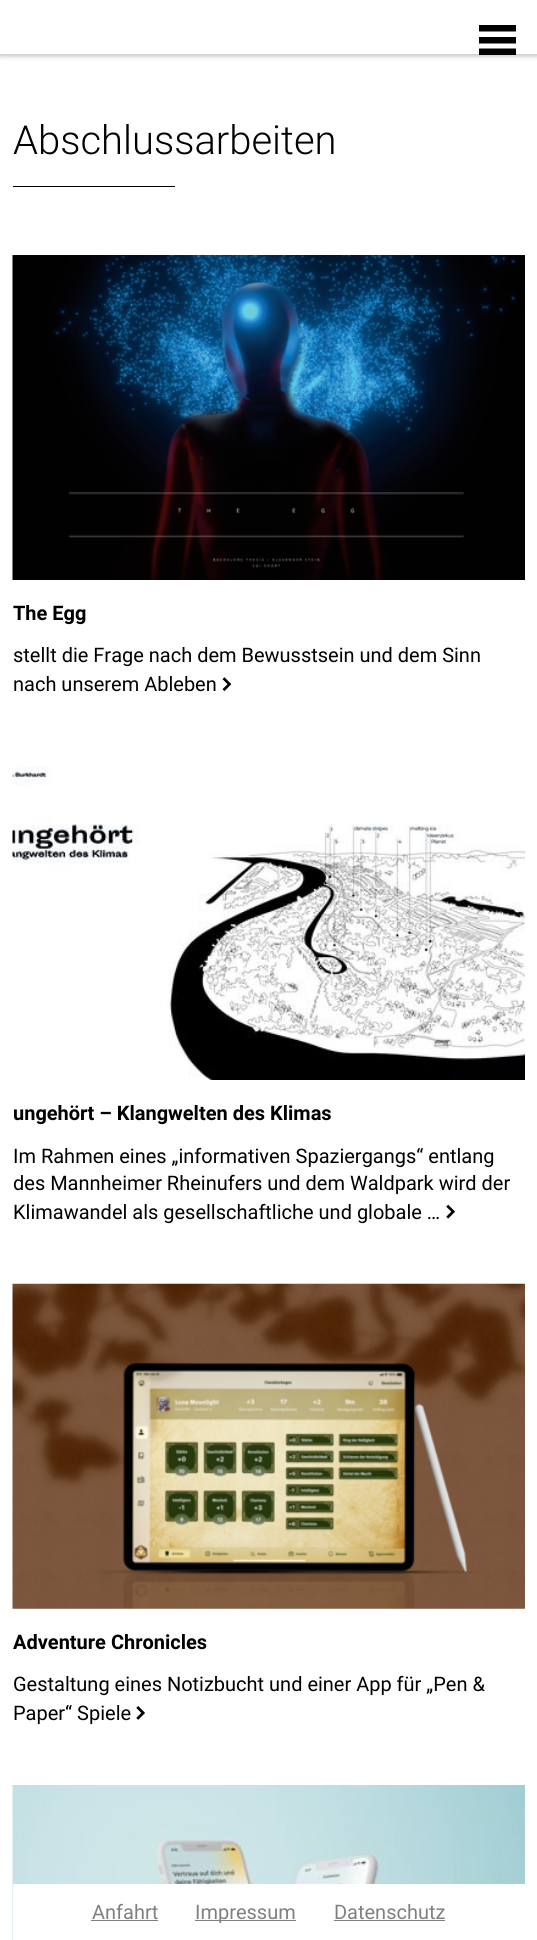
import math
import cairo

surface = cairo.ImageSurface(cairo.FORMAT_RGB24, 537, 1940)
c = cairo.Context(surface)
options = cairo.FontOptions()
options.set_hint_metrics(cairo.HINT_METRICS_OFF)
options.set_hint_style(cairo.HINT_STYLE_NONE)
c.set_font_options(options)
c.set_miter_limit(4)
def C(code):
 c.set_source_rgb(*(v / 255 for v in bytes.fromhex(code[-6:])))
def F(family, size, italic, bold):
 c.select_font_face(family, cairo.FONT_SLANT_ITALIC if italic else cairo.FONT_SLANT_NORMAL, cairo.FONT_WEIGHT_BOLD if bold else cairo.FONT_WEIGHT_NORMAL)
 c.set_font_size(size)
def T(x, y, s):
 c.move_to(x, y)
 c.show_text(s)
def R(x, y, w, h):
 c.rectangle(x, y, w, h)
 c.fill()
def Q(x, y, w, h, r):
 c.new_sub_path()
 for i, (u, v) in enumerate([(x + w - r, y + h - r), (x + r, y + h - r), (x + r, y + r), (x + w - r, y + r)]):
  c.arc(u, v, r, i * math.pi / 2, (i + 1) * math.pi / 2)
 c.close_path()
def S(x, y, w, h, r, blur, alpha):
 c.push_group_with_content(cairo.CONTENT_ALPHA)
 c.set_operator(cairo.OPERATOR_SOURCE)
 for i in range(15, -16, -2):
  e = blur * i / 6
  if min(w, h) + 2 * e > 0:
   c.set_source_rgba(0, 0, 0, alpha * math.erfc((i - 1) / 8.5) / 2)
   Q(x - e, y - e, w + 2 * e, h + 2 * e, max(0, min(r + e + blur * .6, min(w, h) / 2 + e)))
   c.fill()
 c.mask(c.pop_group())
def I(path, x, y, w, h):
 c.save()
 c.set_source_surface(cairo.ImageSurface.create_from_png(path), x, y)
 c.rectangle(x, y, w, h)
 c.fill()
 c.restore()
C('ffffff')
c.paint()
C('000000')
S(0,3,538,53,0,2.5,.25)
C('ffffff')
R(0,0,537,54)
C('000000')
c.new_path()
c.move_to(479,55)
c.line_to(516,55)
c.line_to(516,48.5)
c.line_to(479,48.5)
c.close_path()
c.move_to(479,43.5)
c.line_to(516,43.5)
c.line_to(516,37)
c.line_to(479,37)
c.close_path()
c.move_to(479,25)
c.line_to(516,25)
c.line_to(516,31.5)
c.line_to(479,31.5)
c.close_path()
c.fill()
F('Roboto Light',40,0,0)
T(13,154,'Abschlussarbeiten')
R(13,186,162,1)
I('1.png',12,255,513,325)
F('Roboto',20,0,1)
T(13,620,'The Egg')
F('Roboto',20,0,0)
T(13,662,'stellt die Frage nach dem Bewusstsein und dem Sinn')
T(13,691,'nach unserem Ableben')
I('2.png',222,677,10,14)
I('3.png',12,766,513,314)
F('Roboto',20,0,1)
T(13,1120,'ungehört – Klangwelten des Klimas')
F('Roboto',20,0,0)
T(13,1163,'Im Rahmen eines „informativen Spaziergangs“ entlang')
T(13,1190,'des Mannheimer Rheinufers und dem Waldpark wird der')
T(13,1219,'Klimawandel als gesellschaftliche und globale …')
I('4.png',446,1204,9,15)
I('5.png',12,1283,513,326)
F('Roboto',20,0,1)
T(13,1649,'Adventure Chronicles')
F('Roboto',20,0,0)
T(13,1691,'Gestaltung eines Notizbucht und einer App für „Pen &')
T(13,1720,'Paper“ Spiele')
I('6.png',136,1706,9,14)
I('7.png',12,1785,513,155)
C('ffffff')
R(13,1884,512,56)
C('808080')
T(92,1919,'Anfahrt')
R(91,1920,67,1)
R(195,1920,101,1)
T(195,1919,'Impressum')
T(334,1919,'Datenschutz')
R(334,1920,111,1)
surface.write_to_png('o.png')
